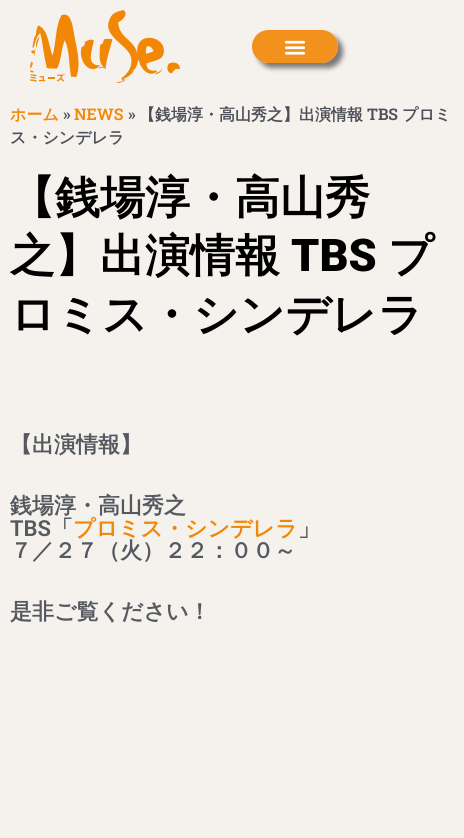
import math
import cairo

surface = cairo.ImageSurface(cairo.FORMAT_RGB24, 464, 838)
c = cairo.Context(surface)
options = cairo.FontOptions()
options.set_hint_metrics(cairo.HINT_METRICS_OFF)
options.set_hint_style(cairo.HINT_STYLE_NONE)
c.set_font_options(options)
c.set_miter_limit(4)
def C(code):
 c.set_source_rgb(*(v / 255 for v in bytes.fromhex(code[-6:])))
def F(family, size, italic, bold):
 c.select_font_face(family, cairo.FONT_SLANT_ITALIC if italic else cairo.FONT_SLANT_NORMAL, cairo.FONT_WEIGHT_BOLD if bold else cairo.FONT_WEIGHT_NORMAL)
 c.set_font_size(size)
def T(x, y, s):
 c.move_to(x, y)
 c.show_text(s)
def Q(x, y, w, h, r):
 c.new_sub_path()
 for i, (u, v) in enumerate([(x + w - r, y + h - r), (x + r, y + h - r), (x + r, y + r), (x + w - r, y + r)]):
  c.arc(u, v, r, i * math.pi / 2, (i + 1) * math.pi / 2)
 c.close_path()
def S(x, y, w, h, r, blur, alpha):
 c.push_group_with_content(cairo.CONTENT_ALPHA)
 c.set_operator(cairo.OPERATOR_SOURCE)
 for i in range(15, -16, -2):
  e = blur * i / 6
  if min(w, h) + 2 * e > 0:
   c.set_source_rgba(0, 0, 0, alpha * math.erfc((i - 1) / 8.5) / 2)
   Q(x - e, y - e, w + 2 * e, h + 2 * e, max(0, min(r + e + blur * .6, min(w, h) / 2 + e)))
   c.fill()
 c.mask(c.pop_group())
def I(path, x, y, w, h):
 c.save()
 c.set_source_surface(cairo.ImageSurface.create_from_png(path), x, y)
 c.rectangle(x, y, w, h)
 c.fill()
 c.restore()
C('f5f1ed')
c.paint()
I('1.png',30,10,150,73)
c.save()
c.set_fill_rule(cairo.FILL_RULE_EVEN_ODD)
c.new_path()
c.move_to(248,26)
c.line_to(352,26)
c.line_to(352,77)
c.line_to(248,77)
c.close_path()
c.move_to(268.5,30)
c.line_to(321.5,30)
c.curve_to(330.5,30,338,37.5,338,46.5)
c.curve_to(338,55.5,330.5,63,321.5,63)
c.line_to(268.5,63)
c.curve_to(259.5,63,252,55.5,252,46.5)
c.curve_to(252,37.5,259.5,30,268.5,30)
c.close_path()
c.clip()
C('000000')
S(257,35,86,33,16.5,2.5,.5)
c.restore()
c.set_source_rgba(0.949,0.529,0.02,0.9)
Q(252,30,86,33,16.5)
c.fill()
I('2.png',284,40,22,15)
F('WenQuanYi Zen Hei',16,0,1)
C('f28705')
T(10,120,'ホーム')
F('Roboto Slab SemiBold',16,0,0)
C('4b4f58')
T(63,120,'»')
C('f28705')
T(74,120,'NEWS')
C('4b4f58')
T(128,120,'»')
F('WenQuanYi Zen Hei',16,0,1)
T(139,120,'【銭場淳・高山秀之】出演情報')
F('Roboto Slab SemiBold',16,0,0)
T(367,120,'TBS')
F('WenQuanYi Zen Hei',16,0,1)
T(402,120,'プロミ')
T(10,143,'ス・シンデレラ')
F('WenQuanYi Zen Hei',45,0,1)
C('000000')
T(10,213,'【銭場淳・高山秀')
T(10,271,'之】出演情報')
F('Roboto Black',45,0,0)
T(291,271,'TBS')
F('WenQuanYi Zen Hei',45,0,1)
T(388,271,'プ')
T(10,330,'ロミス・シンデレラ')
F('WenQuanYi Zen Hei',22,0,1)
C('54595f')
T(10,452,'【出演情報】')
T(10,513,'銭場淳・高山秀之')
F('Roboto SemiBold',22,0,0)
T(10,536,'TBS')
F('WenQuanYi Zen Hei',22,0,1)
T(51,536,'「')
C('f28705')
T(73,536,'プロミス・シンデレラ')
C('54595f')
T(298,536,'」')
T(10,558,'７／２７（火）２２：００～')
T(10,619,'是非ご覧ください！')
surface.write_to_png('o.png')
